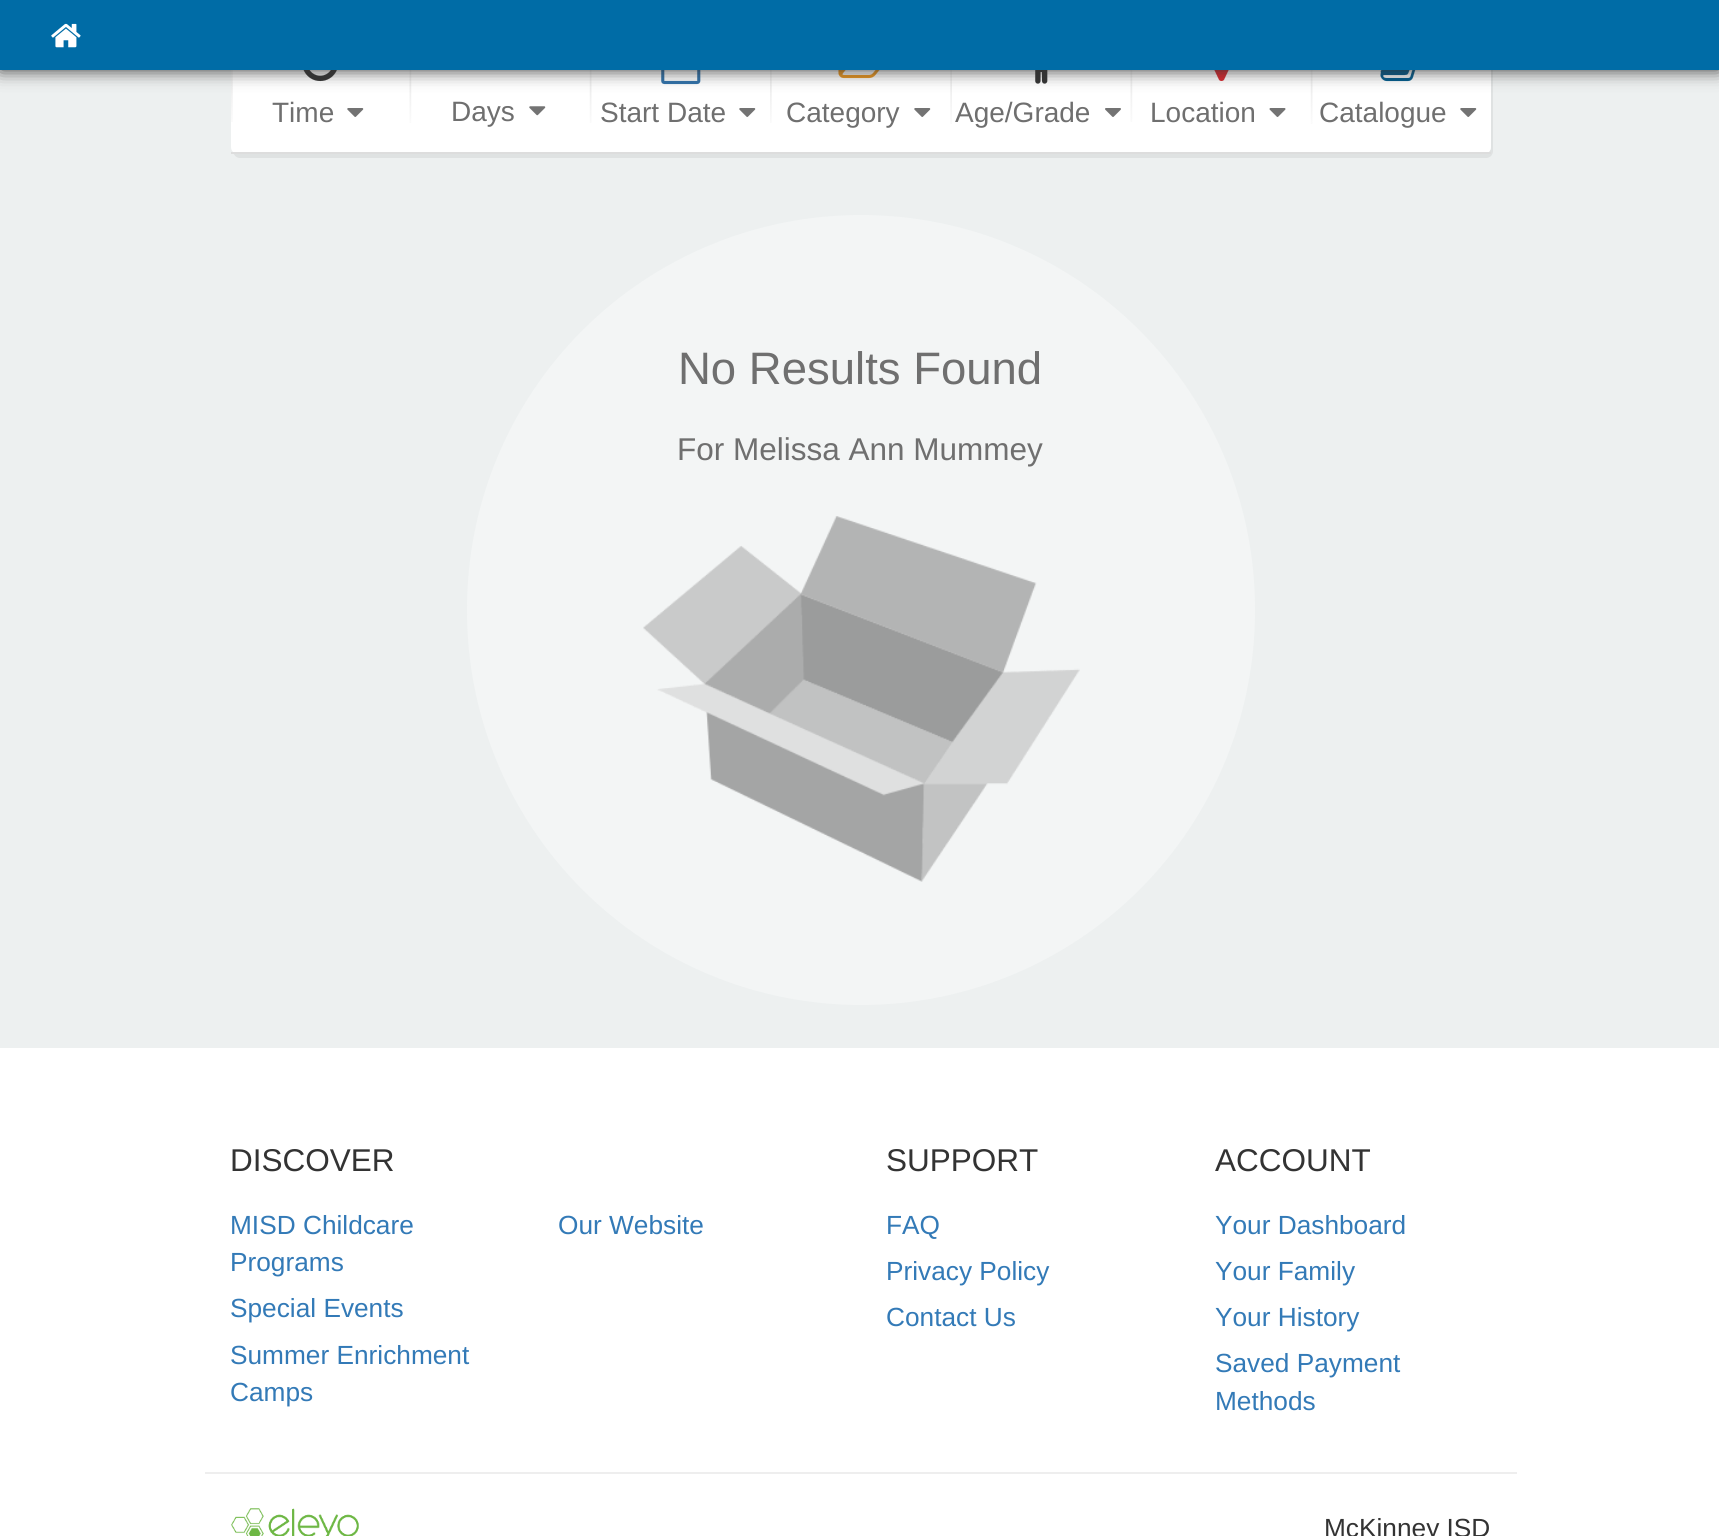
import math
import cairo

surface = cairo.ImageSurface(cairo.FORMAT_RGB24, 1719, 1536)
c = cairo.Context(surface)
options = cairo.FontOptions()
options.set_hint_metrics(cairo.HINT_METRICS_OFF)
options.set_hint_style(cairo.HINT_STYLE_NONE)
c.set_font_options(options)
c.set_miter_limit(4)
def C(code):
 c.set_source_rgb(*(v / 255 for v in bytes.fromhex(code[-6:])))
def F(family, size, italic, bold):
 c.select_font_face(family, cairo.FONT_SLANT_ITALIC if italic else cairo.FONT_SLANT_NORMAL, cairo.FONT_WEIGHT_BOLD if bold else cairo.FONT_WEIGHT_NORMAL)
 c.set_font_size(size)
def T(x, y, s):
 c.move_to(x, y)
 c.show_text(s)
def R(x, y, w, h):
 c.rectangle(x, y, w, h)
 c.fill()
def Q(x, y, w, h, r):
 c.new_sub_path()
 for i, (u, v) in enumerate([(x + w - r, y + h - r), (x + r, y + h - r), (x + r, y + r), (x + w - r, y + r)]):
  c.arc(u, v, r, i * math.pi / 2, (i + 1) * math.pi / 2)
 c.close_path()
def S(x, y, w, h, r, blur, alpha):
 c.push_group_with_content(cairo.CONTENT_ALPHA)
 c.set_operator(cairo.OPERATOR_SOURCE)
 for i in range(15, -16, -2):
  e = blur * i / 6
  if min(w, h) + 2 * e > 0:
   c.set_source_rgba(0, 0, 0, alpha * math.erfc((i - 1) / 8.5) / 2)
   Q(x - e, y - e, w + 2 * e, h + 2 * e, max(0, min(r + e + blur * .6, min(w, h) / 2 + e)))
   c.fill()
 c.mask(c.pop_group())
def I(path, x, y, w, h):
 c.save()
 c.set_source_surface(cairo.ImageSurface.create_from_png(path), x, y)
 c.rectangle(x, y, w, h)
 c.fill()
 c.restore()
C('edf0f0')
c.paint()
C('dfe2e2')
c.new_path()
c.move_to(233,152)
c.curve_to(234,155,236,158,240,158)
c.line_to(1486,158)
c.curve_to(1490,158,1493,155,1493,151)
c.line_to(1493,32)
c.curve_to(1493,30,1492,28,1491,27)
c.line_to(1491,147)
c.curve_to(1491,151,1488,154,1484,154)
c.line_to(238,154)
c.curve_to(236,154,234,153,233,152)
c.close_path()
c.fill()
C('ffffff')
Q(231,21,1260,133,7)
c.fill()
I('2.png',231,70,2,52)
I('3.png',303,70,34,12)
I('5.png',409,70,3,53)
I('7.png',589,70,3,53)
I('8.png',661,70,40,15)
I('9.png',770,70,2,53)
I('10.png',838,70,42,9)
I('11.png',950,70,2,54)
I('12.png',1035,70,13,14)
I('14.png',1130,70,3,52)
I('15.png',1214,70,15,11)
I('17.png',1310,70,3,54)
I('18.png',1380,70,36,12)
C('333333')
S(0,0,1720,70,0,9,1)
C('006ca6')
R(0,0,1719,70)
I('1.png',51,23,30,25)
F('Liberation Sans',28,0,0)
C('6f6f6f')
T(272,122,'Time')
I('4.png',347,108,17,9)
T(451,121,'Days')
I('6.png',529,106,17,10)
T(600,122,'Start Date')
I('4.png',739,108,17,9)
T(786,122,'Category')
I('4.png',914,108,17,9)
T(955,122,'Age/Grade')
I('13.png',1105,108,16,9)
T(1150,122,'Location')
I('16.png',1269,108,17,9)
T(1319,122,'Catalogue')
I('4.png',1460,108,17,9)
C('dddddd')
R(231,152,1260,2)
C('f3f5f5')
Q(467,215,788,790,394)
c.fill()
F('Liberation Sans',45.5,0,0)
C('6f6f6f')
T(678,384,'No Results Found')
F('Liberation Sans',31.5,0,0)
T(677,460,'For Melissa Ann Mummey')
I('19.png',643,516,437,366)
C('ffffff')
R(0,1048,1719,488)
C('333333')
T(230,1171,'DISCOVER')
F('Liberation Sans',26.25,0,0)
C('337ab7')
T(230,1234,'MISD Childcare')
T(230,1271,'Programs')
T(230,1317,'Special Events')
T(230,1364,'Summer Enrichment')
T(230,1401,'Camps')
T(558,1234,'Our Website')
F('Liberation Sans',31.5,0,0)
C('333333')
T(886,1171,'SUPPORT')
F('Liberation Sans',26.25,0,0)
C('337ab7')
T(886,1234,'FAQ')
T(886,1280,'Privacy Policy')
T(886,1326,'Contact Us')
F('Liberation Sans',31.5,0,0)
C('333333')
T(1215,1171,'ACCOUNT')
F('Liberation Sans',26.25,0,0)
C('337ab7')
T(1215,1234,'Your Dashboard')
T(1215,1280,'Your Family')
T(1215,1326,'Your History')
T(1215,1372,'Saved Payment')
T(1215,1410,'Methods')
C('eeeeee')
R(205,1472,1312,2)
I('20.png',231,1508,128,28)
C('333333')
T(1324,1537,'McKinney ISD')
surface.write_to_png('o.png')
